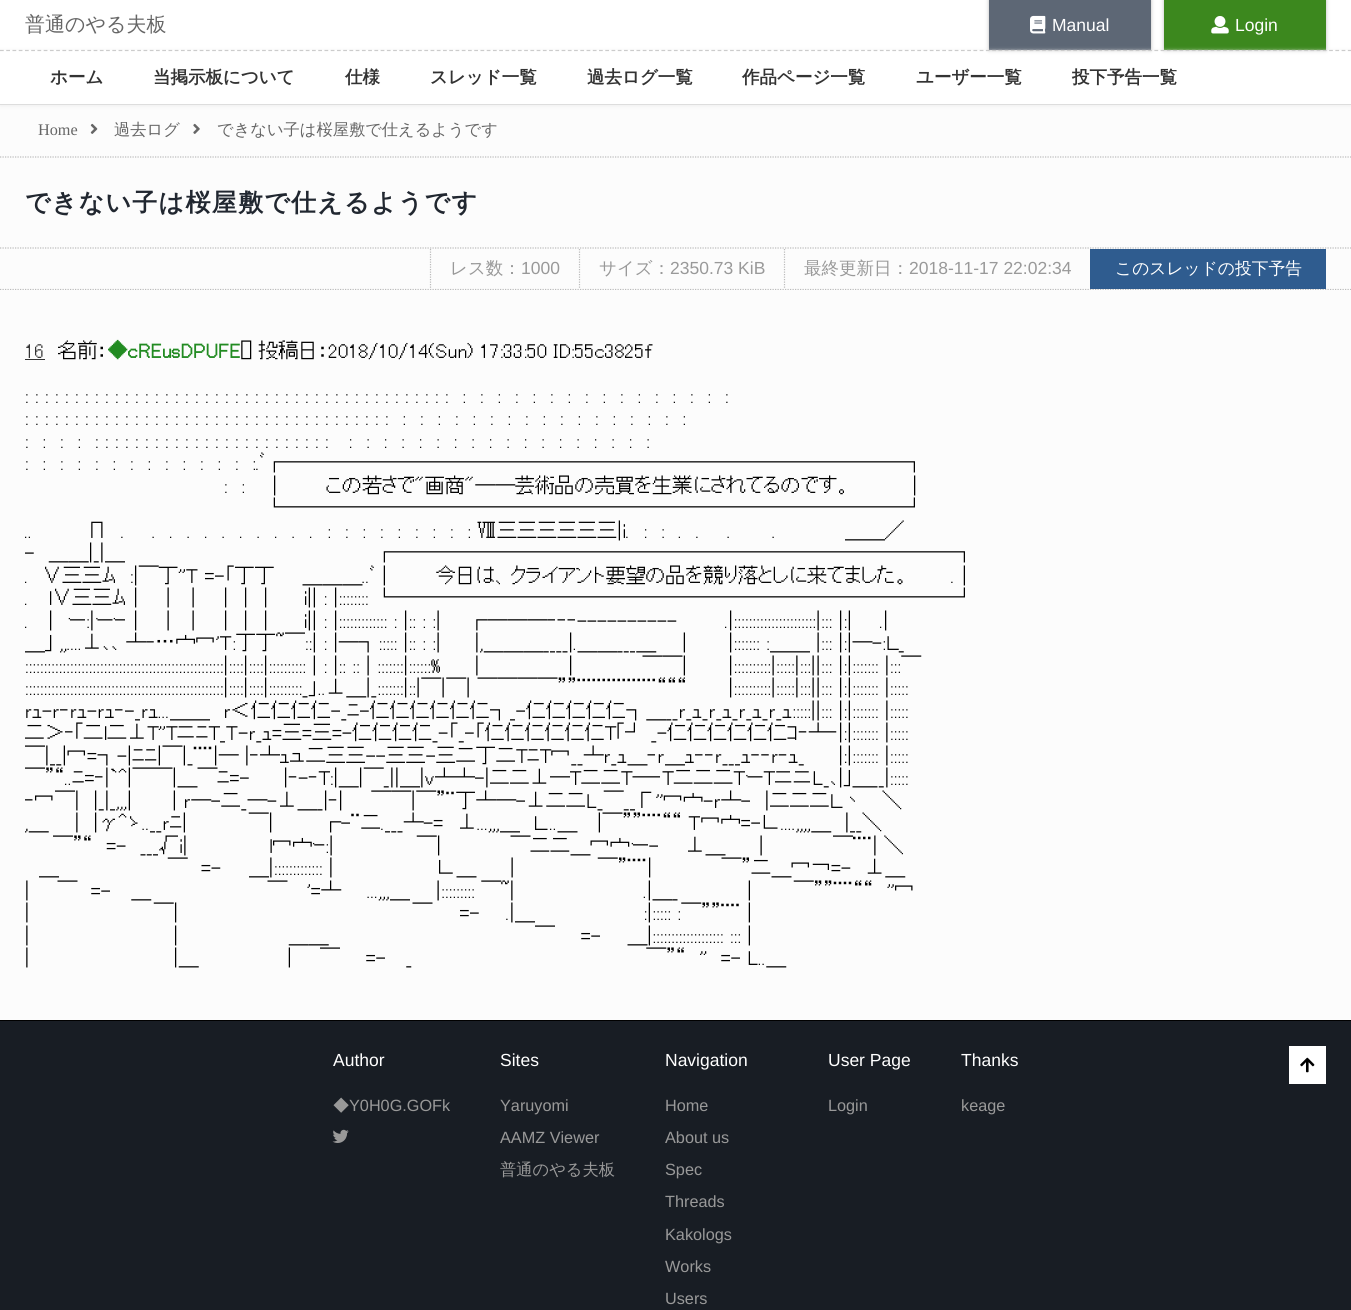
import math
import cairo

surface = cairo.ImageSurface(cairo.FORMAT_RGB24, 1351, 1310)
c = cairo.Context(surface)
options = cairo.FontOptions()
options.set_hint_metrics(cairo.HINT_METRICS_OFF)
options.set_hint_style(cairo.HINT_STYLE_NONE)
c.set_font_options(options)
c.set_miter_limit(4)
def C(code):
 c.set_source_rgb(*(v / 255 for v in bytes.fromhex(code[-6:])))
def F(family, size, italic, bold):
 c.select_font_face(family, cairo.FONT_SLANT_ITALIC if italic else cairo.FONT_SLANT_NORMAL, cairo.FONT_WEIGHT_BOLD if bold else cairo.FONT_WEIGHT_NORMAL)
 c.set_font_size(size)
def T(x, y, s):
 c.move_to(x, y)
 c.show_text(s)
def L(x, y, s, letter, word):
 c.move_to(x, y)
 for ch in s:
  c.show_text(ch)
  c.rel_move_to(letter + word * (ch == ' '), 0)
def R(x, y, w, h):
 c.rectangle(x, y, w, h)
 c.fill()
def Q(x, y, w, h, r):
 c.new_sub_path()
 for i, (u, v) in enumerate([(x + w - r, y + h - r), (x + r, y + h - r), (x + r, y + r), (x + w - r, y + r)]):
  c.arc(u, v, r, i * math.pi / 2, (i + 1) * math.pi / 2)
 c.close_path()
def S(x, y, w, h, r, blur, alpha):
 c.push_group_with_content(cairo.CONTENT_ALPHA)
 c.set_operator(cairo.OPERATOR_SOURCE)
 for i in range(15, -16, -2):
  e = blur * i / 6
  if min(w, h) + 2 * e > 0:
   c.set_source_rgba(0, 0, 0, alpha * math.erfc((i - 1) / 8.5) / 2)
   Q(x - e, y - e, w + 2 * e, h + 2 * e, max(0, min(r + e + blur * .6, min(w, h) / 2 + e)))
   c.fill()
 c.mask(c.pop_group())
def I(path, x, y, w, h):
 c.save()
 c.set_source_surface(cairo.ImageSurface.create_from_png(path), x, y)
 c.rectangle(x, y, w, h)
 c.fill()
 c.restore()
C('ffffff')
c.paint()
F('WenQuanYi Zen Hei Medium',20,0,0)
C('666666')
T(25,31,'普通のやる夫板')
C('bbbbbb')
S(989,0,162,50,0,2,1)
C('5d6775')
R(989,0,162,50)
I('1.png',1030,15,16,19)
F('Liberation Sans',17.5,0,0)
C('ffffff')
T(1052,31,'Manual')
C('bbbbbb')
S(1164,0,162,50,0,2,1)
C('3c881e')
R(1164,0,162,50)
I('2.png',1211,16,18,18)
C('ffffff')
T(1235,31,'Login')
C('fcfcfc')
R(0,105,1351,185)
c.save()
c.set_fill_rule(cairo.FILL_RULE_EVEN_ODD)
c.new_path()
c.move_to(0,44)
c.line_to(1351,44)
c.line_to(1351,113)
c.line_to(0,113)
c.close_path()
c.move_to(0,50)
c.line_to(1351,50)
c.line_to(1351,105)
c.line_to(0,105)
c.close_path()
c.clip()
C('eeeeee')
S(0,51,1351,55,0,2,1)
c.restore()
c.new_path()
c.move_to(0,50.5)
c.line_to(1351,50.5)
C('cccccc')
c.set_line_width(1.2)
c.set_dash([3.75,2.49])
c.stroke()
C('dddddd')
R(0,104,1351,1)
F('WenQuanYi Zen Hei',17.5,0,1)
C('333333')
T(50,83,'ホーム')
T(153,83,'当掲示板について')
T(345,83,'仕様')
T(430,83,'スレッド一覧')
T(587,83,'過去ログ一覧')
T(742,83,'作品ページ一覧')
T(916,83,'ユーザー一覧')
T(1072,83,'投下予告一覧')
F('Liberation Serif',16.25,0,0)
C('666666')
T(38,135,'Home')
I('3.png',90,123,8,11)
F('WenQuanYi Zen Hei Medium',16.25,0,0)
T(114,135,'過去ログ')
I('4.png',193,123,7,11)
T(217,135,'できない子は桜屋敷で仕えるようです')
c.new_path()
c.move_to(0,157)
c.line_to(1351,157)
C('bbbbbb')
c.set_dash([1.25,1.25])
c.stroke()
c.new_path()
c.move_to(0,248)
c.line_to(1351,248)
c.stroke()
F('WenQuanYi Zen Hei',25,0,1)
C('212730')
L(25,211,'できない子は桜屋敷で仕えるようです',1.25,0)
c.new_path()
c.move_to(0,289.5)
c.line_to(1351,289.5)
C('bbbbbb')
c.stroke()
c.new_path()
c.move_to(430.5,249)
c.line_to(430.5,289)
c.stroke()
F('WenQuanYi Zen Hei Medium',17.5,0,0)
C('999999')
T(450,274,'レス数：')
F('Liberation Sans',17.5,0,0)
T(521,274,'1000')
c.new_path()
c.move_to(579.5,249)
c.line_to(579.5,289)
C('bbbbbb')
c.stroke()
F('WenQuanYi Zen Hei Medium',17.5,0,0)
C('999999')
T(599,274,'サイズ：')
F('Liberation Sans',17.5,0,0)
T(670,274,'2350.73 KiB')
c.new_path()
c.move_to(784.5,249)
c.line_to(784.5,289)
C('bbbbbb')
c.stroke()
F('WenQuanYi Zen Hei Medium',17.5,0,0)
C('999999')
T(804,274,'最終更新日：')
F('Liberation Sans',17.5,0,0)
T(909,274,'2018-11-17 22:02:34')
C('2f5c8f')
R(1090,249,236,40)
F('WenQuanYi Zen Hei Medium',16.75,0,0)
C('ffffff')
T(1115,274,'このスレッドの投下予告')
C('fcfcfc')
R(0,290,1351,730)
F('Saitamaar',20,0,0)
C('333333')
T(25,358,'16')
R(25,359,20,1)
C('000000')
T(58,358,'名前：')
F('Saitamaar',20,0,1)
C('228b22')
T(108,358,'◆cREusDPUFE')
F('Saitamaar',20,0,0)
C('000000')
T(240,358,'[] 投稿日：2018/10/14(Sun) 17:33:50 ID:55c3825f')
T(25,403,': : : : : : : : : : : : : : : : : : : : : : : : : : : : : : : : : : : : : : : : : : :　:　:　:　:　:　:　:　:　:　:　:　:　:　:　:　:')
T(25,425,': : : : : : : : : : : : : : : : : : : : : : : : : : : : : : : : : : : : :　:　:　:　:　:　:　:　:　:　:　:　:　:　:　:　:　:')
T(25,448,':　:　:　:　: : : : : : : : : : : : : : : : : : : : : : : : 　:　:　:　:　:　:　:　:　:　:　:　:　:　:　:　:　:　:')
T(25,470,':　:　:　:　:　:　:　:　:　:　:　:　:　:.ﾞ┌───────────────────────────────┐')
T(224,493,':　:　 │　　　この若さで"画商"――芸術品の売買を生業にされてるのです。　　 　 │')
T(265,515,'└───────────────────────────────┘')
T(25,538,'..　　　　Π　.　　.　.　.　.　.　.　.　.　.　.　:　:　:　:　:　:　:　:　: Ⅷ三三三三三三|i.　:　:　.　.　　.　　　.　　　　　＿＿／')
T(25,560,'-　＿＿|_|＿　　　　　　　　　 　 　 　 　 　 　 ┌────────────────────────────┐')
T(25,583,'.　∨三三ﾑ　:|￣丁\'\'Ｔ =-「丁丁　　＿＿＿..ﾞ│　　　今日は、クライアント要望の品を競り落としに来てました。　　　.│')
T(25,605,'.　 l∨三三ﾑ｜　 |　 |　 ｜｜｜　　i|| : |:::::::: └────────────────────────────┘')
T(25,628,'.　 |　ー:|ーｰ｜　 |　 |　 ｜｜｜　　i|| : |::::::::::::: : |:: : :| 　 ┌───‐‐‐----------　　　 .|::::::::::::::::::::::|::: |:|　　.|')
T(25,650,'＿｣ ,,....⊥､､ ┴‐…宀冖\'Ｔ:丁丁~￣::| : |─┐::::: |:: : :|　　 |,＿＿＿____|.＿＿___＿ 　 |　　　|::::::: :＿＿ |::: |:|─-:Ｌ_')
T(25,673,':::::::::::::::::::::::::::::::::::::::::::::::::::::|::::|::::|:::::::::: | : |:: :: | :::::::|::::::%　　 |　　　　　　 |　　　　　￣￣|　　　|::::::::::|:::::|:::||::: |:|::::::: |:::￣')
T(25,695,':::::::::::::::::::::::::::::::::::::::::::::::::::::|::::|::::|:::::::::_」..⊥＿|_:::::::|::|￣|￣| ￣￣￣￣””¨¨¨¨¨¨¨¨“““　　　|::::::::::|:::::|:::||::: |:|::::::: |:::::')
T(25,718,'ｒｭ-ｒ‐ｒｭ-ｒｭ‐-_ｒｭ...＿＿　ｒ＜仁仁仁仁-_ﾆ-仁仁仁仁仁仁┐_-仁仁仁仁仁┐＿__ｒ_ｭ_ｒ_ｭ_ｒ_ｭ_ｒ_ｭ:::::||::: |:|::::::: |:::::')
T(25,740,'二＞‐｢二l二⊥T\'\'TニﾆT_Ｔ-ｒ_ｭ=三=三=-仁仁仁仁_-「_-「仁仁仁仁仁仁T｢┘ _-仁仁仁仁仁仁ｺ‐┴‐|:|::::::: |:::::')
T(25,763,'￣|__|冖=┐-|ﾆﾆ|￣|_¨¨|─ |‐┴ｭュ二三三--三三-三二丁二TﾆT冖__┴ｒ_ｭ＿‐ｒ＿ｭ‐‐ｒ___ｭ‐‐ｒ‐ｭ_　　 |:|::::::: |:::::')
T(25,785,'￣”“..ﾆ=‐|`^|￣￣|＿￣ﾆ=-　　 |‐-‐T:|＿|￣_||＿|ｖ┴┴-|二二⊥─T二二T─‐T二二二TーTニニL_､|｣＿__|:::::')
T(25,808,'‐冖￣|　|_|_,,,|　 　 | ｒ─-二_─-⊥＿_|‐|　　￣￣|￣”¨丁┴─-⊥二二L_￣__Γ\'\'冖宀-ｒ┴-　|二二二Ｌ丶　 ＼')
T(25,830,',＿ 　 |　|γ^ゝ..__ｒﾆ|　　　　 ￣|　　　 ┌-¨二.___┴-=　⊥...,,,＿　Ｌ...＿　 |￣””¨¨““ Ｔ冖宀=-∟....,,,,＿　|__＼')
T(53,853,'￣”“　=-　___√i|　　　　 　 l冖宀ｰ:|　　　　　　￣|　　　　　￣二二＿冖宀ー- 　 ⊥＿　　 |　　　　　￣¨¨| ＼')
T(39,875,'＿　　　　　 　 　￣　=-　　＿|::::::::::::: |　　　　　 　　∟＿　　 |　　　　　　￣”¨¨|　　　　　￣”二＿冖￢=-　⊥＿')
T(25,898,'|　　￣　=-　 ＿　　　　　　　　 ￣ 　\'=┴ 　 ...,,,＿ 　 |::::::::: ￣~|　　　　　　 　 　 .|＿_　　　　　|　　　￣””¨¨““　\'\'冖')
T(25,920,'|　　　　　　　　　￣|　　　　　　　　　　　　　　　　　￣　　=- 　 .|＿　　　　　 　 　:|::::: :￣””¨¨ |')
T(25,943,'|　　　　　　　　　　 |　　　　　　　　＿＿　　　　　　　　　　　　　　　￣ 　 =- 　 ＿|::::::::::::::::::: ::: |')
T(25,965,'|　　　　　　　　　　 |＿　　　　　　 |　　￣ 　 =-　 _　　　　　　　　　　　　　　　　　￣”“　\'\'　=- L..＿')
R(0,1020,1351,1)
C('181d24')
R(0,1021,1351,289)
F('Liberation Sans',17.5,0,0)
C('ffffff')
T(333,1066,'Author')
F('WenQuanYi Zen Hei Medium',16.25,0,0)
C('999999')
T(333,1111,'◆')
F('Liberation Sans',16.25,0,0)
T(349,1111,'Y0H0G.GOFk')
I('5.png',332,1129,17,14)
F('Liberation Sans',17.5,0,0)
C('ffffff')
T(500,1066,'Sites')
F('Liberation Sans',16.25,0,0)
C('999999')
T(500,1111,'Yaruyomi')
T(500,1143,'AAMZ Viewer')
F('WenQuanYi Zen Hei Medium',16.25,0,0)
T(500,1175,'普通のやる夫板')
F('Liberation Sans',17.5,0,0)
C('ffffff')
T(665,1066,'Navigation')
F('Liberation Sans',16.25,0,0)
C('999999')
T(665,1111,'Home')
T(665,1143,'About us')
T(665,1175,'Spec')
T(665,1207,'Threads')
T(665,1240,'Kakologs')
T(665,1272,'Works')
T(665,1304,'Users')
F('Liberation Sans',17.5,0,0)
C('ffffff')
T(828,1066,'User Page')
F('Liberation Sans',16.25,0,0)
C('999999')
T(828,1111,'Login')
F('Liberation Sans',17.5,0,0)
C('ffffff')
T(961,1066,'Thanks')
F('Liberation Sans',16.25,0,0)
C('999999')
T(961,1111,'keage')
C('ffffff')
R(1289,1046,37,38)
I('6.png',1300,1057,15,16)
surface.write_to_png('o.png')
